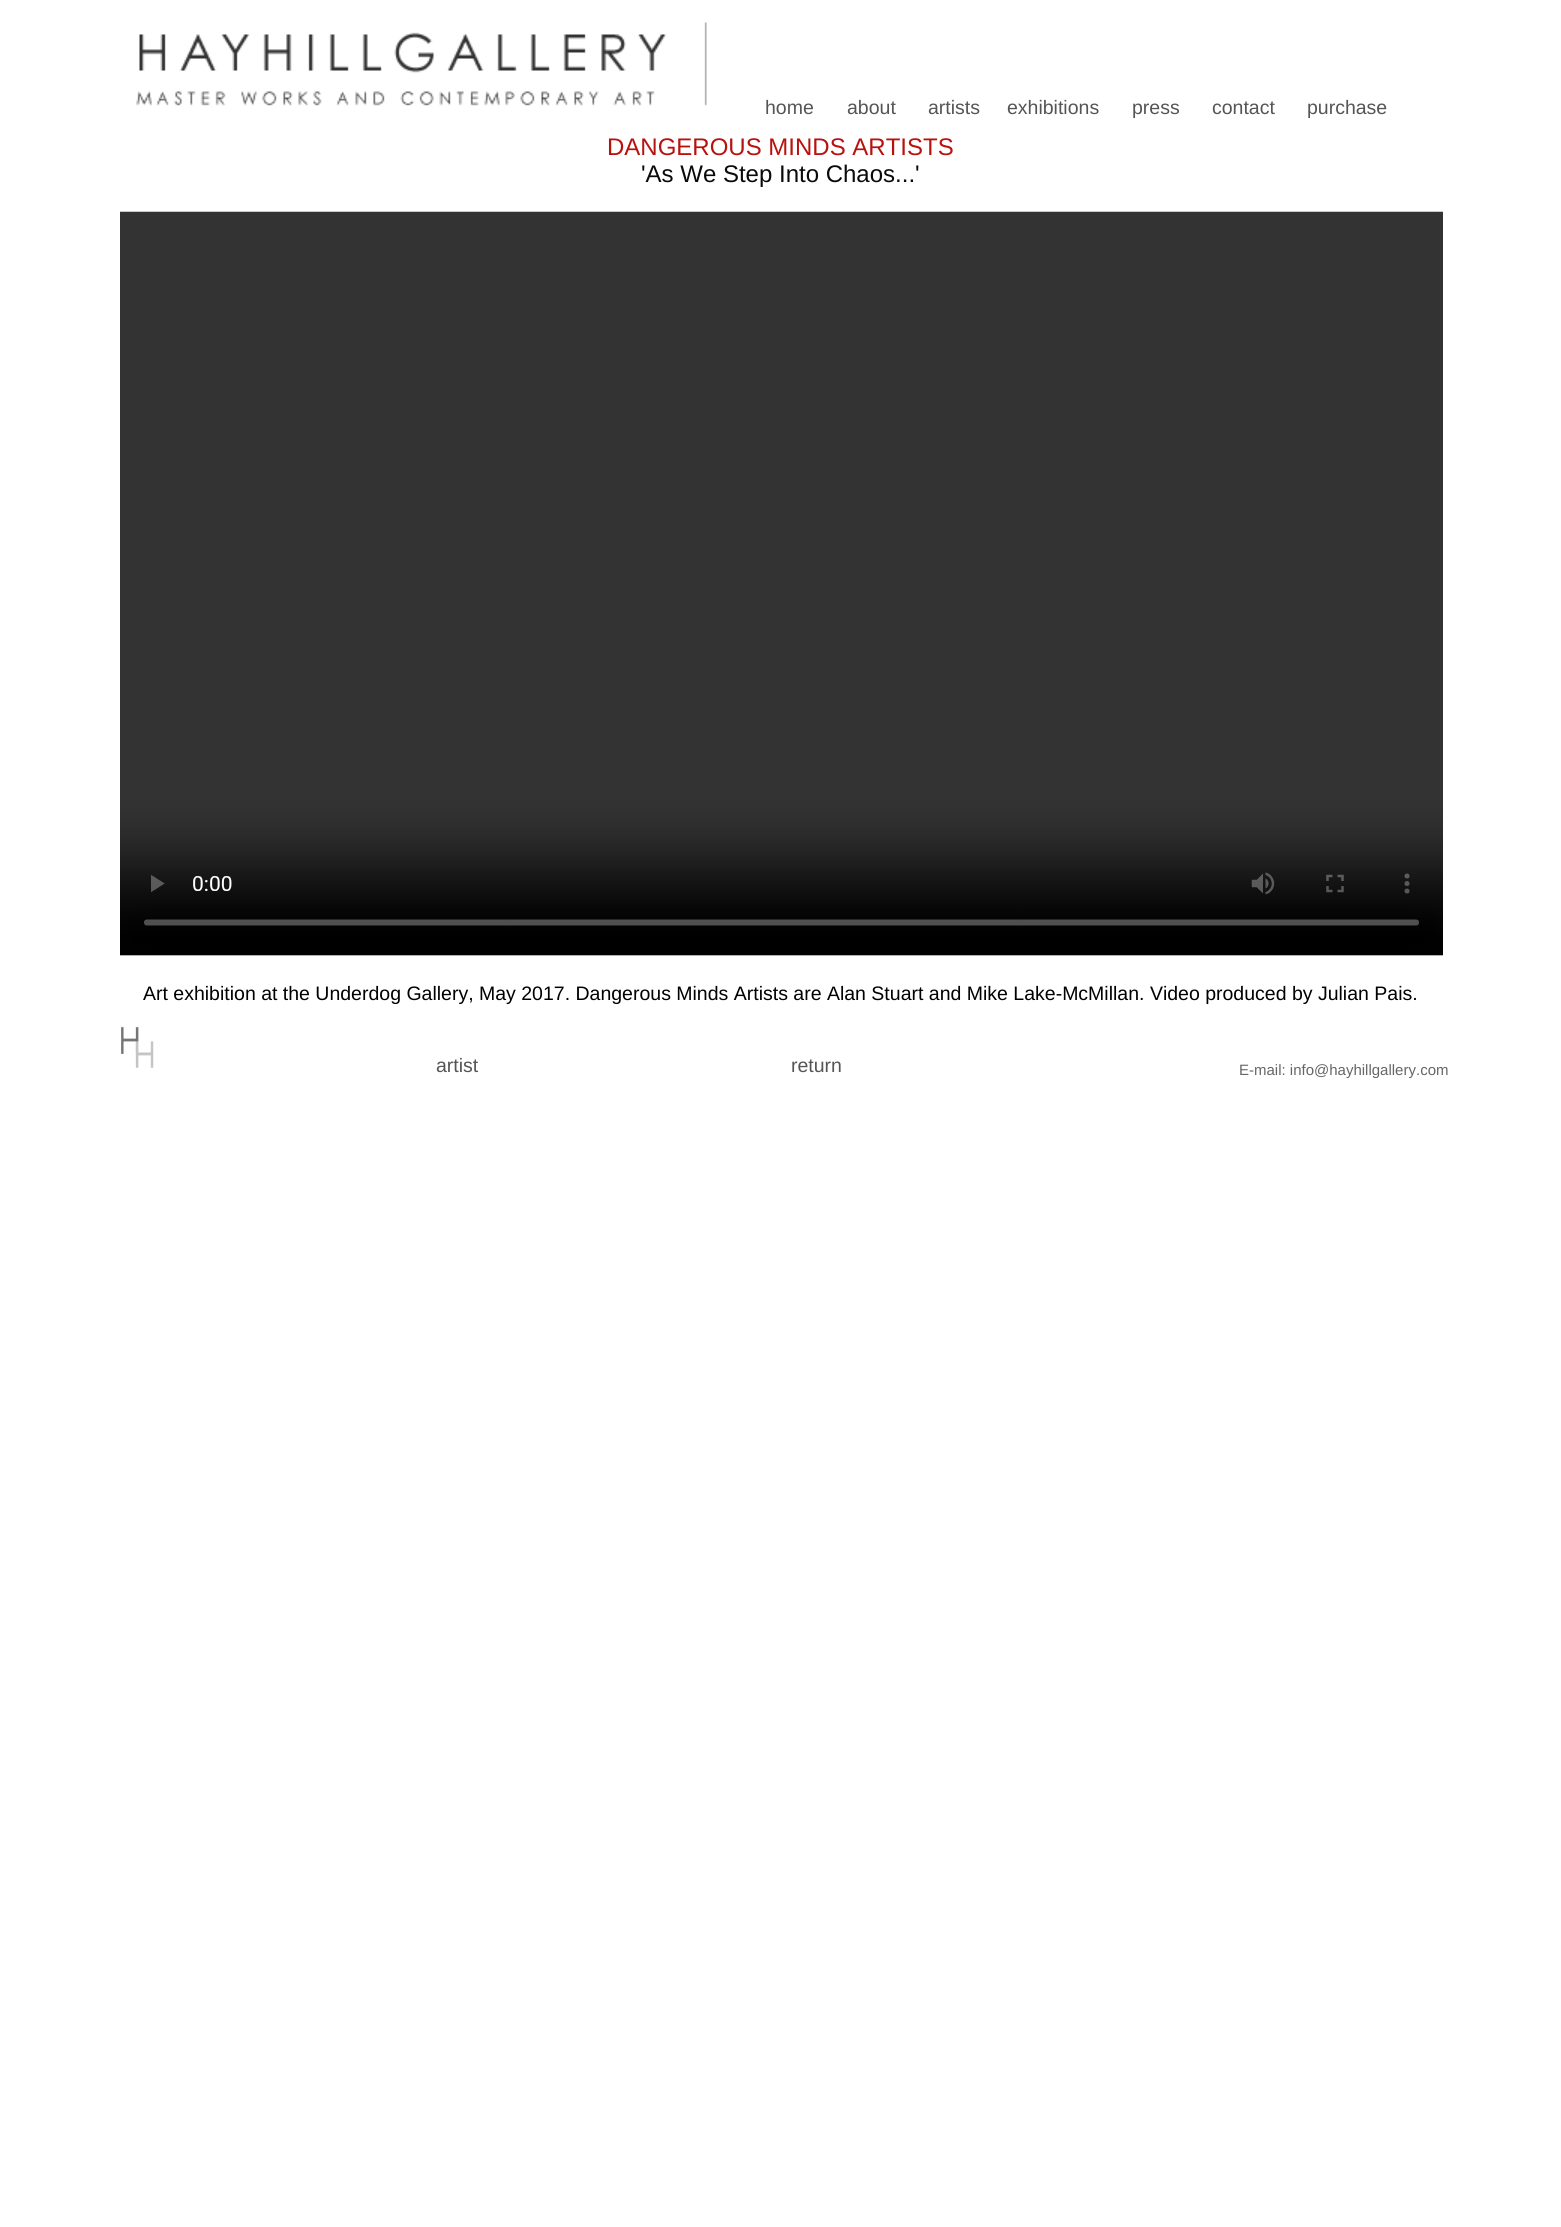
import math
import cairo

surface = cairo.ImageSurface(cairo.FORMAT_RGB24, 1561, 2227)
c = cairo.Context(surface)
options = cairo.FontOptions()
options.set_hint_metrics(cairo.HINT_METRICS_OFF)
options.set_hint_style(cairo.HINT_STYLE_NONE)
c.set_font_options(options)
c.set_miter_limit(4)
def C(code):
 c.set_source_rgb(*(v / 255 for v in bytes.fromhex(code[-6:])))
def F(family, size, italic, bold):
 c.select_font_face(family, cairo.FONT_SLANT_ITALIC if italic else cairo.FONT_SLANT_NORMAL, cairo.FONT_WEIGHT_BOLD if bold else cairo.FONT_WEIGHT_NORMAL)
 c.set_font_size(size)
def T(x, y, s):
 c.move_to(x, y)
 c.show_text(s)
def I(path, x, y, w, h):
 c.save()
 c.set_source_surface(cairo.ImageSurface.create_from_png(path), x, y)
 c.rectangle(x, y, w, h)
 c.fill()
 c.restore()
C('ffffff')
c.paint()
I('1.png',136,22,571,84)
F('Liberation Sans',19.5,0,0)
C('555555')
T(765,114,'home')
T(847,114,'about')
T(928,114,'artists')
T(1007,114,'exhibitions')
T(1132,114,'press')
T(1212,114,'contact')
T(1307,114,'purchase')
F('Liberation Sans',24,0,0)
C('b8120e')
T(607,155,'DANGEROUS MINDS ARTISTS')
C('0a0a0a')
T(641,182,'\'As We Step Into Chaos...\'')
I('2.png',120,211,1323,745)
F('Liberation Sans',19.5,0,0)
C('000000')
T(143,1000,'Art exhibition at the Underdog Gallery, May 2017. Dangerous Minds Artists are Alan Stuart and Mike Lake-McMillan. Video produced by Julian Pais.')
I('3.png',121,1026,33,42)
C('555555')
T(436,1072,'artist')
T(791,1072,'return')
F('Liberation Sans',15,0,0)
C('666666')
T(1239,1075,'E-mail: info@hayhillgallery.com')
surface.write_to_png('o.png')
